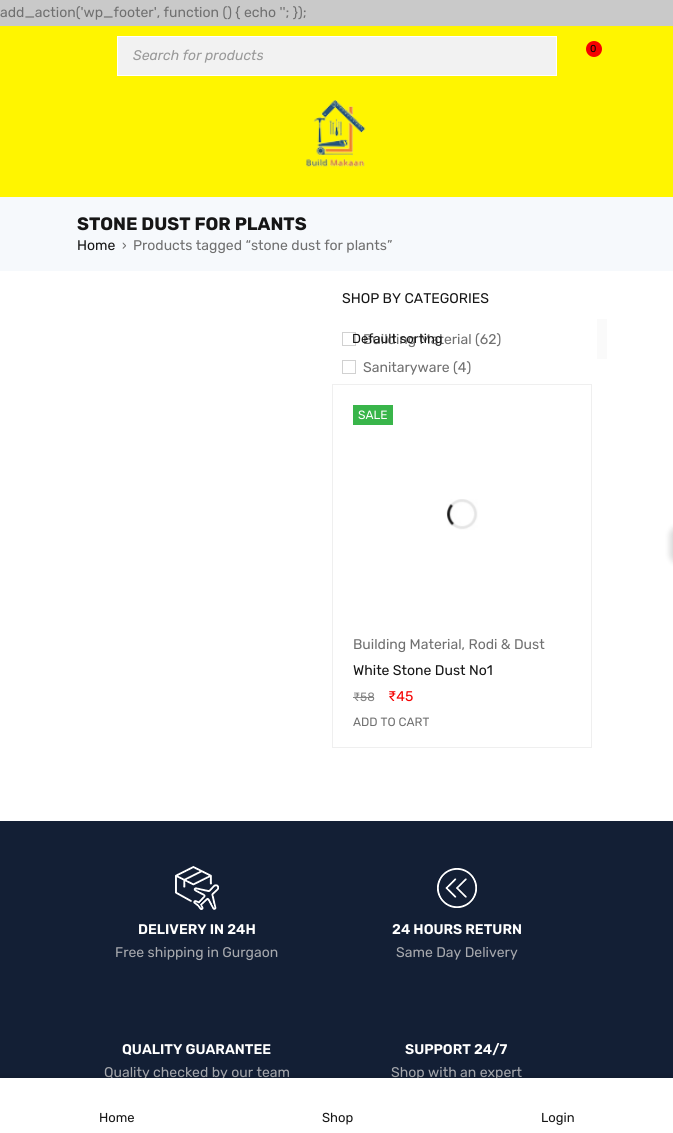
import math
import cairo

surface = cairo.ImageSurface(cairo.FORMAT_RGB24, 673, 1133)
c = cairo.Context(surface)
options = cairo.FontOptions()
options.set_hint_metrics(cairo.HINT_METRICS_OFF)
options.set_hint_style(cairo.HINT_STYLE_NONE)
c.set_font_options(options)
c.set_miter_limit(4)
def C(code):
 c.set_source_rgb(*(v / 255 for v in bytes.fromhex(code[-6:])))
def F(family, size, italic, bold):
 c.select_font_face(family, cairo.FONT_SLANT_ITALIC if italic else cairo.FONT_SLANT_NORMAL, cairo.FONT_WEIGHT_BOLD if bold else cairo.FONT_WEIGHT_NORMAL)
 c.set_font_size(size)
def T(x, y, s):
 c.move_to(x, y)
 c.show_text(s)
def R(x, y, w, h):
 c.rectangle(x, y, w, h)
 c.fill()
def Q(x, y, w, h, r):
 c.new_sub_path()
 for i, (u, v) in enumerate([(x + w - r, y + h - r), (x + r, y + h - r), (x + r, y + r), (x + w - r, y + r)]):
  c.arc(u, v, r, i * math.pi / 2, (i + 1) * math.pi / 2)
 c.close_path()
def S(x, y, w, h, r, blur, alpha):
 c.push_group_with_content(cairo.CONTENT_ALPHA)
 c.set_operator(cairo.OPERATOR_SOURCE)
 for i in range(15, -16, -2):
  e = blur * i / 6
  if min(w, h) + 2 * e > 0:
   c.set_source_rgba(0, 0, 0, alpha * math.erfc((i - 1) / 8.5) / 2)
   Q(x - e, y - e, w + 2 * e, h + 2 * e, max(0, min(r + e + blur * .6, min(w, h) / 2 + e)))
   c.fill()
 c.mask(c.pop_group())
def I(path, x, y, w, h):
 c.save()
 c.set_source_surface(cairo.ImageSurface.create_from_png(path), x, y)
 c.rectangle(x, y, w, h)
 c.fill()
 c.restore()
C('c9c9c9')
c.paint()
F('Rubik',14,0,0)
C('707070')
T(0,17,'add_action(\'wp_footer\', function () { echo \'\'; });')
C('fff500')
R(0,26,673,171)
C('f2f2f2')
c.rectangle(117.5,36.5,439,39)
c.fill_preserve()
C('ffffff')
c.set_line_width(1)
c.stroke()
F('Rubik',14,1,0)
C('999999')
T(133,60,'Search for products')
C('f50000')
c.new_path()
c.arc(594,49,8,0,2 * math.pi)
c.fill()
F('Rubik',10,0,0)
C('050505')
T(590,52,'0')
I('1.png',306,99,60,69)
C('ffffff')
R(0,271,673,550)
C('f6f9fc')
R(0,197,673,74)
F('Rubik',18,0,1)
C('161616')
T(77,230,'STONE DUST FOR PLANTS')
F('Rubik',14,0,0)
T(77,250,'Home')
F('Rubik',13,0,0)
C('707070')
T(122,250,'›')
F('Rubik',14,0,0)
T(133,250,'Products tagged “stone dust for plants”')
C('161616')
T(342,303,'SHOP BY CATEGORIES')
c.rectangle(342.5,332.5,13,13)
C('d1d1d1')
c.stroke()
C('707070')
T(363,344,'Building Material (62)')
c.rectangle(342.5,360.5,13,13)
C('d1d1d1')
c.stroke()
C('707070')
T(363,372,'Sanitaryware (4)')
C('fafafa')
R(597,319,10,40)
F('Rubik',13,0,0)
C('161616')
T(352,343,'Default sorting')
C('efefef')
R(332,384,1,364)
R(333,384,259,1)
R(591,384,1,364)
R(333,747,259,1)
C('39b54a')
R(353,405,40,20)
F('Rubik',12,0,0)
C('ffffff')
T(358,419,'SALE')
I('2.png',446,499,32,31)
F('Rubik',14,0,0)
C('707070')
T(353,649,'Building Material, Rodi & Dust')
C('161616')
T(353,675,'White Stone Dust No1')
F('Rubik',12,0,0)
C('848484')
T(353,701,'₹58')
R(353,697,21,1)
F('Rubik',14,0,0)
C('f50000')
T(388,701,'₹45')
F('Rubik',12,0,0)
C('707070')
T(353,726,'ADD TO CART')
C('131f35')
R(0,821,673,257)
I('3.png',175,866,44,44)
F('Rubik SemiBold',14,0,0)
C('ffffff')
T(138,934,'DELIVERY IN 24H')
F('Rubik',14,0,0)
C('a7a9ae')
T(115,957,'Free shipping in Gurgaon')
I('4.png',437,868,40,40)
F('Rubik SemiBold',14,0,0)
C('ffffff')
T(392,934,'24 HOURS RETURN')
F('Rubik',14,0,0)
C('a7a9ae')
T(396,957,'Same Day Delivery')
F('Rubik SemiBold',14,0,0)
C('ffffff')
T(122,1054,'QUALITY GUARANTEE')
F('Rubik',14,0,0)
C('a7a9ae')
T(104,1077,'Quality checked by our team')
F('Rubik SemiBold',14,0,0)
C('ffffff')
T(405,1054,'SUPPORT 24/7')
F('Rubik',14,0,0)
C('a7a9ae')
T(391,1077,'Shop with an expert')
C('000000')
S(670,526,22,38,10,3,.16)
S(0,1075,673,55,0,2,.1)
C('ffffff')
R(0,1078,673,55)
F('Rubik',13,0,0)
C('161616')
T(99,1122,'Home')
T(322,1122,'Shop')
T(541,1122,'Login')
surface.write_to_png('o.png')
